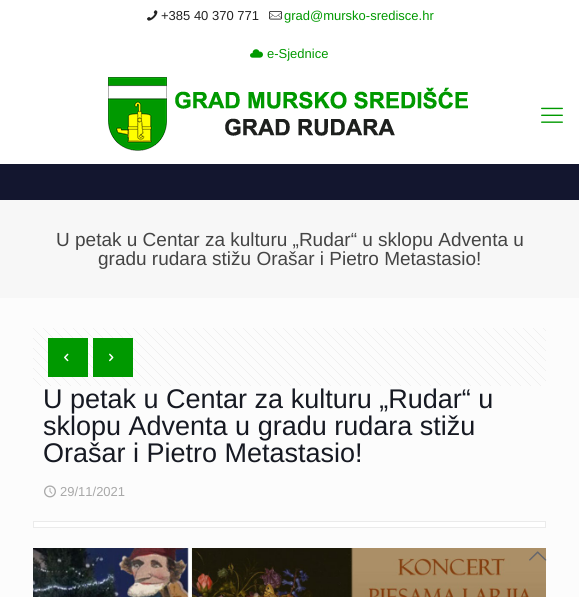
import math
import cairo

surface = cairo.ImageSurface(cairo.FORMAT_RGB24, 579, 597)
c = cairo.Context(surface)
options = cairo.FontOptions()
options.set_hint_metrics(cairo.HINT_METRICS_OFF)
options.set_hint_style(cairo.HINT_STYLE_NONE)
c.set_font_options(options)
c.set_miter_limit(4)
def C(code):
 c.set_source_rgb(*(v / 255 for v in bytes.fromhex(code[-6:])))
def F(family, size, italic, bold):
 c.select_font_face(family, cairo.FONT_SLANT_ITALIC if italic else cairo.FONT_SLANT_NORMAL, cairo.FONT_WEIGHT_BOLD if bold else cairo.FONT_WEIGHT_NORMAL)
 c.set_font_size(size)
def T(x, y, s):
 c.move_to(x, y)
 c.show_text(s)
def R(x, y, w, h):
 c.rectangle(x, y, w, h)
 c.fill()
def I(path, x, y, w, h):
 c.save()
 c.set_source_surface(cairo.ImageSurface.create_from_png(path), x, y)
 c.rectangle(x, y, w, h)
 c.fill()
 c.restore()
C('fcfcfc')
c.paint()
C('13162f')
R(0,164,579,36)
C('ffffff')
R(0,0,579,164)
I('1.png',147,10,11,11)
F('Liberation Sans',13,0,0)
C('222222')
T(161,20,'+385 40 370 771')
I('2.png',269,11,13,9)
C('009900')
T(284,20,'grad@mursko-sredisce.hr')
I('3.png',250,49,13,9)
T(267,58,'e-Sjednice')
I('4.png',108,77,360,74)
I('5.png',541,107,22,16)
C('f7f7f7')
R(0,200,579,98)
F('Liberation Sans',19,0,0)
C('444444')
T(56,246,'U petak u Centar za kulturu „Rudar“ u sklopu Adventa u')
T(98,265,'gradu rudara stižu Orašar i Pietro Metastasio!')
I('6.png',33,328,513,58)
C('009900')
R(48,338,40,39)
I('7.png',64,353,5,9)
R(93,338,40,39)
I('8.png',109,353,5,9)
F('Liberation Sans',27,0,0)
C('161922')
T(43,408,'U petak u Centar za kulturu „Rudar“ u')
T(43,435,'sklopu Adventa u gradu rudara stižu')
T(43,462,'Orašar i Pietro Metastasio!')
I('9.png',44,485,12,13)
F('Liberation Sans',13,0,0)
C('a8a8a8')
T(60,496,'29/11/2021')
C('ffffff')
c.rectangle(33.5,521.5,512,6)
c.fill_preserve()
C('ebebeb')
c.set_line_width(1)
c.stroke()
I('10.png',33,548,513,49)
I('11.png',529,551,18,10)
surface.write_to_png('o.png')
